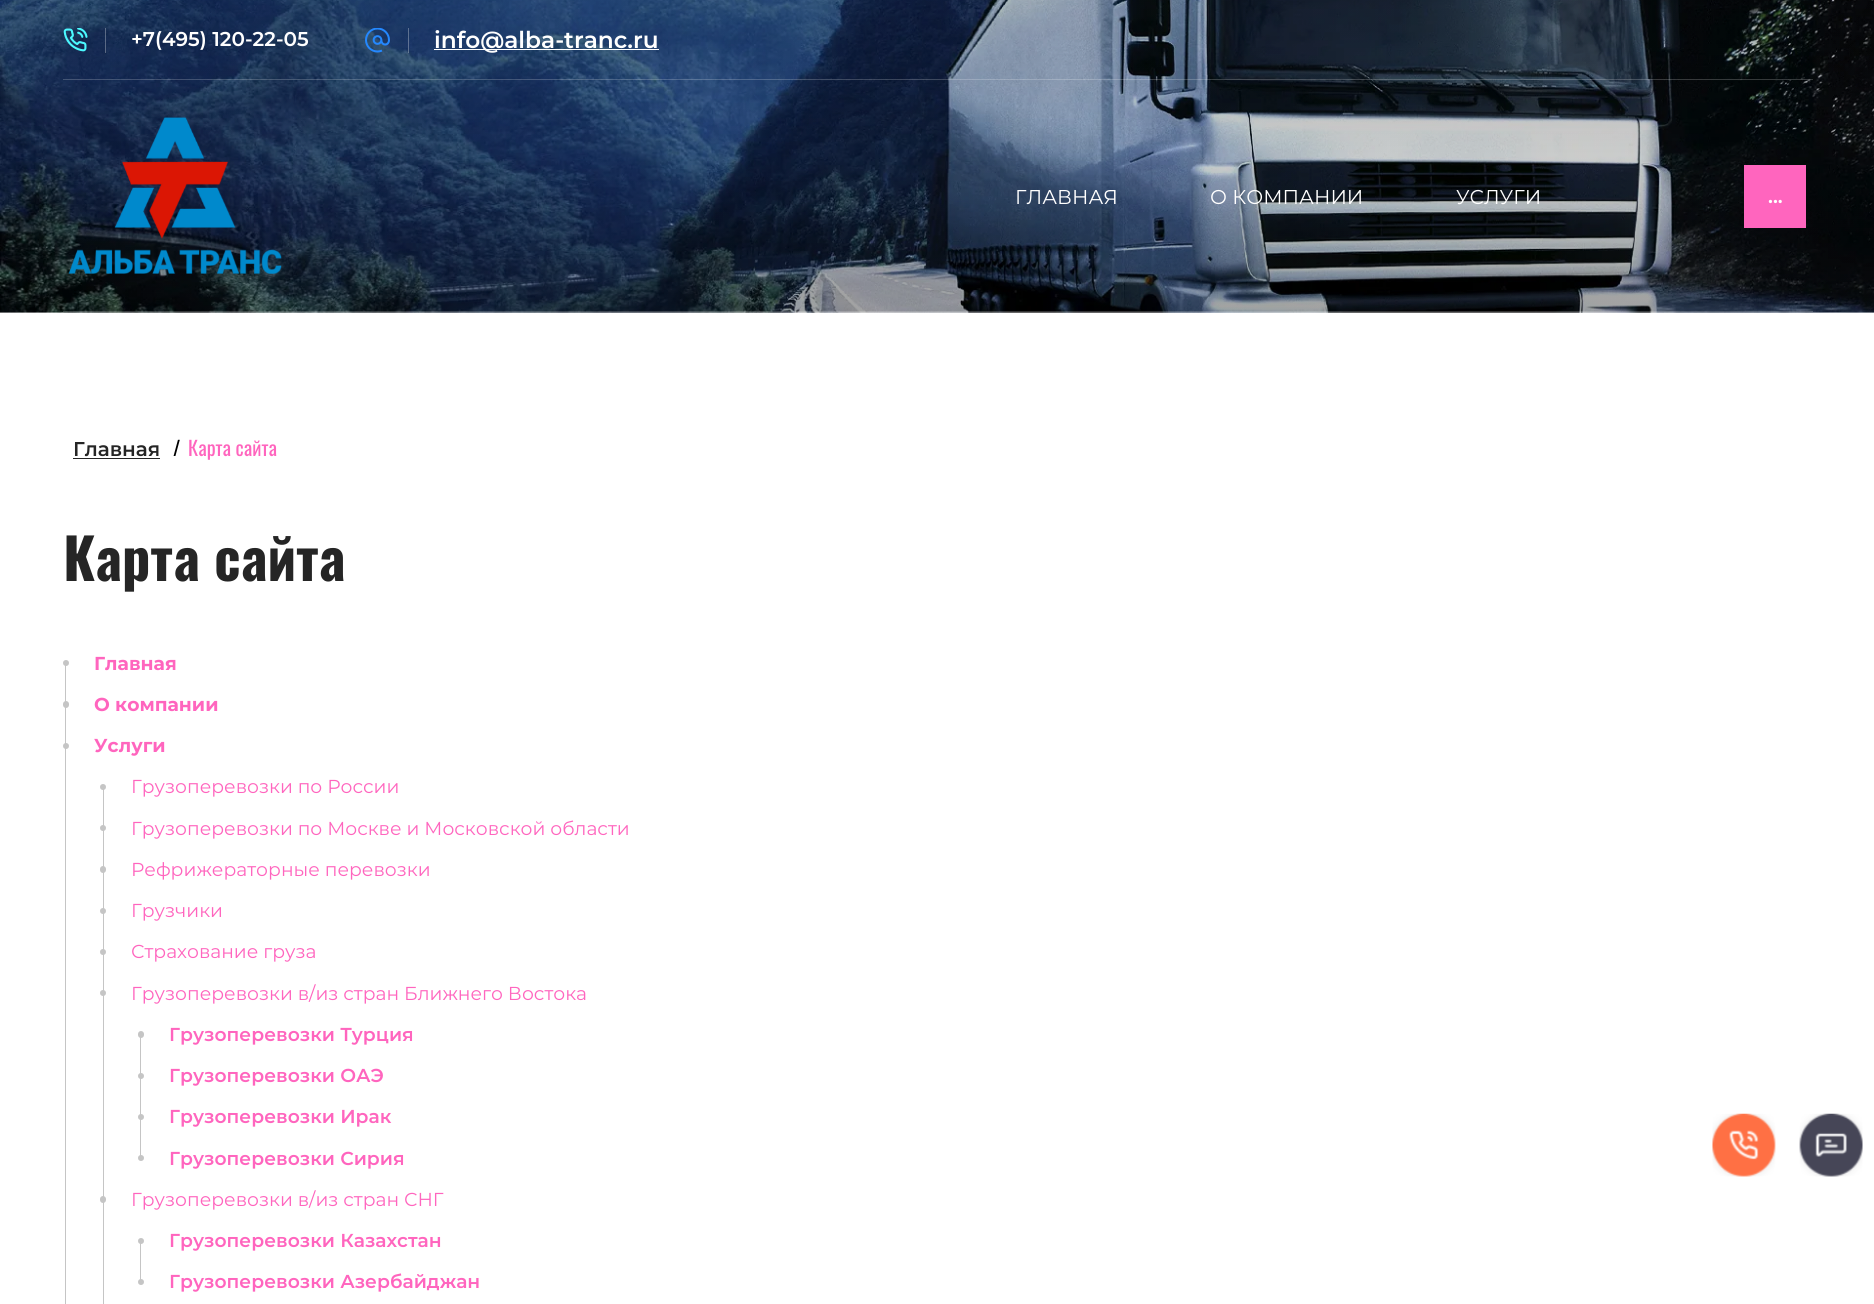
import math
import cairo

surface = cairo.ImageSurface(cairo.FORMAT_RGB24, 1874, 1304)
c = cairo.Context(surface)
options = cairo.FontOptions()
options.set_hint_metrics(cairo.HINT_METRICS_OFF)
options.set_hint_style(cairo.HINT_STYLE_NONE)
c.set_font_options(options)
c.set_miter_limit(4)
def C(code):
 c.set_source_rgb(*(v / 255 for v in bytes.fromhex(code[-6:])))
def F(family, size, italic, bold):
 c.select_font_face(family, cairo.FONT_SLANT_ITALIC if italic else cairo.FONT_SLANT_NORMAL, cairo.FONT_WEIGHT_BOLD if bold else cairo.FONT_WEIGHT_NORMAL)
 c.set_font_size(size)
def T(x, y, s):
 c.move_to(x, y)
 c.show_text(s)
def R(x, y, w, h):
 c.rectangle(x, y, w, h)
 c.fill()
def Q(x, y, w, h, r):
 c.new_sub_path()
 for i, (u, v) in enumerate([(x + w - r, y + h - r), (x + r, y + h - r), (x + r, y + r), (x + w - r, y + r)]):
  c.arc(u, v, r, i * math.pi / 2, (i + 1) * math.pi / 2)
 c.close_path()
def I(path, x, y, w, h):
 c.save()
 c.set_source_surface(cairo.ImageSurface.create_from_png(path), x, y)
 c.rectangle(x, y, w, h)
 c.fill()
 c.restore()
C('ffffff')
c.paint()
I('1.png',0,0,1874,313)
c.set_source_rgba(1,1,1,0.3)
R(105,28,1,25)
I('2.png',63,28,25,24)
F('Montserrat SemiBold',20,0,0)
C('ffffff')
T(131,46,'+7(495) 120-22-05')
c.set_source_rgba(1,1,1,0.3)
R(408,28,1,25)
I('3.png',365,28,25,25)
C('ffffff')
R(434,49,225,1)
F('Montserrat SemiBold',23.25,0,0)
T(434,48,'info@alba-tranc.ru')
c.set_source_rgba(1,1,1,0.2)
R(63,79,1750,1)
R(63,311,1750,1)
I('4.png',68,117,214,157)
F('Montserrat',20,0,0)
C('ffffff')
T(1015,204,'ГЛАВНАЯ')
T(1210,204,'О КОМПАНИИ')
T(1456,204,'УСЛУГИ')
C('ff65be')
R(1744,165,62,63)
F('Montserrat SemiBold',20,0,0)
C('ffffff')
T(1768,203,'...')
C('252525')
T(73,456,'Главная')
R(73,458,87,1)
F('Oswald',20,0,0)
C('000000')
T(173,456,'/')
C('ff65be')
T(188,456,'Карта сайта')
F('Oswald',56.25,0,1)
C('252525')
T(63,581,'Карта сайта')
C('c5c5c5')
R(65,664,1,640)
c.new_path()
c.arc(66,663,3,0,2 * math.pi)
c.fill()
F('Montserrat',18.75,0,1)
C('ff65be')
T(94,670,'Главная')
C('c5c5c5')
Q(63,701,6,7,3)
c.fill()
C('ff65be')
T(94,711,'О компании')
C('c5c5c5')
c.new_path()
c.arc(66,746,3,0,2 * math.pi)
c.fill()
C('ff65be')
T(94,752,'Услуги')
C('c5c5c5')
R(103,788,1,516)
c.new_path()
c.arc(103,787,3,0,2 * math.pi)
c.fill()
F('Montserrat',18.75,0,0)
C('ff65be')
T(131,793,'Грузоперевозки по России')
C('c5c5c5')
c.new_path()
c.arc(103,828,3,0,2 * math.pi)
c.fill()
C('ff65be')
T(131,835,'Грузоперевозки по Москве и Московской области')
C('c5c5c5')
Q(100,866,6,7,3)
c.fill()
C('ff65be')
T(131,876,'Рефрижераторные перевозки')
C('c5c5c5')
c.new_path()
c.arc(103,911,3,0,2 * math.pi)
c.fill()
C('ff65be')
T(131,917,'Грузчики')
C('c5c5c5')
c.new_path()
c.arc(103,952,3,0,2 * math.pi)
c.fill()
C('ff65be')
T(131,958,'Страхование груза')
C('c5c5c5')
c.new_path()
c.arc(103,993,3,0,2 * math.pi)
c.fill()
C('ff65be')
T(131,1000,'Грузоперевозки в/из стран Ближнего Востока')
C('c5c5c5')
R(140,1035,1,124)
Q(138,1031,6,7,3)
c.fill()
F('Montserrat SemiBold',18.75,0,0)
C('ff65be')
T(169,1041,'Грузоперевозки Турция')
C('c5c5c5')
c.new_path()
c.arc(141,1076,3,0,2 * math.pi)
c.fill()
C('ff65be')
T(169,1082,'Грузоперевозки ОАЭ')
C('c5c5c5')
c.new_path()
c.arc(141,1117,3,0,2 * math.pi)
c.fill()
C('ff65be')
T(169,1123,'Грузоперевозки Ирак')
C('c5c5c5')
c.new_path()
c.arc(141,1158,3,0,2 * math.pi)
c.fill()
C('ff65be')
T(169,1165,'Грузоперевозки Сирия')
C('c5c5c5')
Q(100,1196,6,7,3)
c.fill()
F('Montserrat',18.75,0,0)
C('ff65be')
T(131,1206,'Грузоперевозки в/из стран СНГ')
C('c5c5c5')
R(140,1241,1,42)
c.new_path()
c.arc(141,1241,3,0,2 * math.pi)
c.fill()
F('Montserrat SemiBold',18.75,0,0)
C('ff65be')
T(169,1247,'Грузоперевозки Казахстан')
C('c5c5c5')
c.new_path()
c.arc(141,1282,3,0,2 * math.pi)
c.fill()
C('ff65be')
T(169,1288,'Грузоперевозки Азербайджан')
I('5.png',1712,1113,64,64)
I('6.png',1799,1113,64,64)
surface.write_to_png('o.png')
